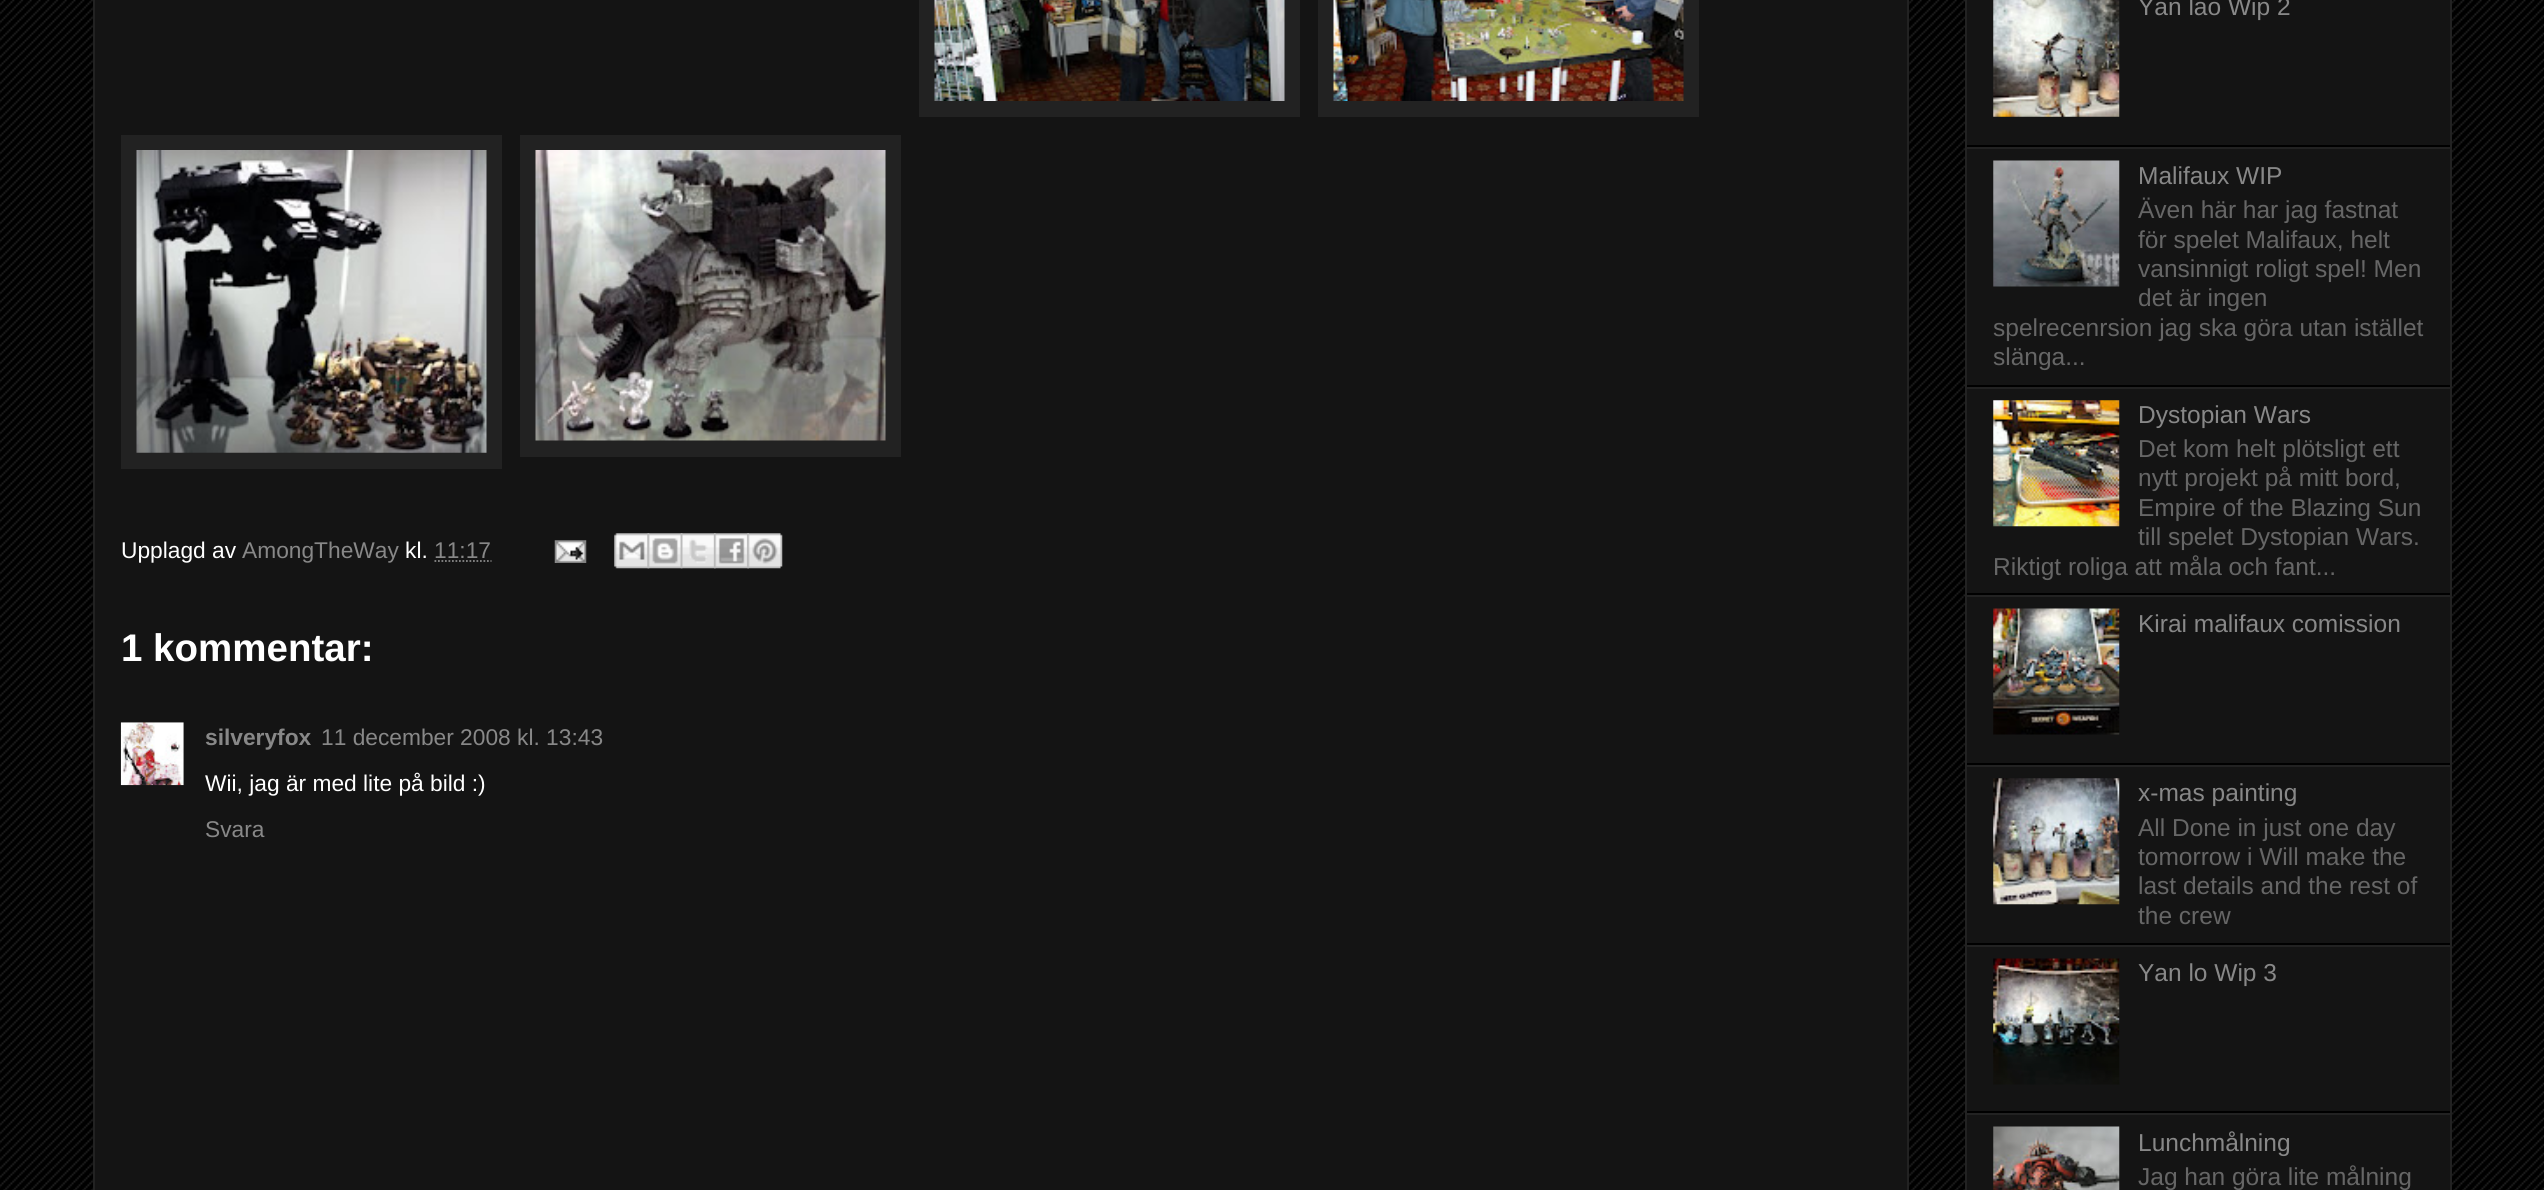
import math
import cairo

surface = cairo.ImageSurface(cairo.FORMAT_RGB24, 2544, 1190)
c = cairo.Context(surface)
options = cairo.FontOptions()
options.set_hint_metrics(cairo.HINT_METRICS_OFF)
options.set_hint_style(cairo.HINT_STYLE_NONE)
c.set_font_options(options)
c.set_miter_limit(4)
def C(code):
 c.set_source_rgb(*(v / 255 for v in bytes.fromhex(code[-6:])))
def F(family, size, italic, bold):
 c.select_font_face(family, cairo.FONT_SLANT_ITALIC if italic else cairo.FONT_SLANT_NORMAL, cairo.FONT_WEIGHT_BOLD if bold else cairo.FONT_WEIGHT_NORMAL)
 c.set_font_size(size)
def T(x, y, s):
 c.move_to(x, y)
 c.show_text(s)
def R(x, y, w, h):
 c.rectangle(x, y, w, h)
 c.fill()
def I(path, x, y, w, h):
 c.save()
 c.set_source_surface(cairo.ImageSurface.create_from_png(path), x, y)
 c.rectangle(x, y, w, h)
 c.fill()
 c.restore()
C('000000')
c.paint()
I('1.png',0,0,2544,1190)
C('141414')
c.rectangle(94,-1,1814,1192)
c.fill_preserve()
C('222222')
c.stroke()
R(919,0,381,117)
I('2.png',934,0,351,101)
R(1318,0,381,117)
I('3.png',1333,0,351,101)
R(121,135,381,334)
I('4.png',136,150,351,303)
R(520,135,381,322)
I('5.png',535,150,351,291)
F('Liberation Sans',22.75,0,0)
C('ffffff')
T(121,558,'Upplagd av')
C('888888')
T(242,558,'AmongTheWay')
C('ffffff')
T(405,558,'kl.')
C('888888')
T(434,558,'11:17')
c.new_path()
c.move_to(434.5,561)
c.line_to(491.5,561)
c.set_line_width(1.8)
c.set_dash([1.75,1.75])
c.stroke()
I('6.png',554,540,33,23)
I('7.png',614,533,36,36)
I('8.png',647,533,36,36)
I('9.png',680,533,36,36)
I('10.png',714,533,35,36)
I('11.png',747,533,36,36)
F('Liberation Sans',38.5,0,1)
C('ffffff')
T(121,661,'1 kommentar:')
I('12.png',120,722,64,64)
F('Liberation Sans',22.75,0,1)
C('888888')
T(205,745,'silveryfox')
F('Liberation Sans',22.75,0,0)
T(321,745,'11 december 2008 kl. 13:43')
C('ffffff')
T(205,791,'Wii, jag är med lite på bild :)')
C('888888')
T(205,837,'Svara')
C('141414')
c.rectangle(1966,-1,485,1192)
c.fill_preserve()
C('222222')
c.set_line_width(2)
c.set_dash([])
c.stroke()
C('000000')
R(1967,145,483,2)
I('13.png',1993,0,127,117)
F('Liberation Sans',24.5,0,0)
C('888888')
T(2138,15,'Yan lao Wip 2')
C('222222')
R(1967,147,483,2)
C('000000')
R(1967,385,483,2)
I('14.png',1993,160,127,127)
C('888888')
T(2138,184,'Malifaux WIP')
C('666666')
T(2138,218,'Även här har jag fastnat')
T(2138,248,'för spelet Malifaux, helt')
T(2138,277,'vansinnigt roligt spel! Men')
T(2138,306,'det är ingen')
T(1993,336,'spelrecenrsion jag ska göra utan istället')
T(1993,365,'slänga...')
C('222222')
R(1967,387,483,2)
C('000000')
R(1967,593,483,2)
I('15.png',1993,400,127,127)
C('888888')
T(2138,423,'Dystopian Wars')
C('666666')
T(2138,457,'Det kom helt plötsligt ett')
T(2138,486,'nytt projekt på mitt bord,')
T(2138,516,'Empire of the Blazing Sun')
T(2138,545,'till spelet Dystopian Wars.')
T(1993,575,'Riktigt roliga att måla och fant...')
C('222222')
R(1967,595,483,2)
C('000000')
R(1967,763,483,2)
I('16.png',1993,608,127,127)
C('888888')
T(2138,632,'Kirai malifaux comission')
C('222222')
R(1967,765,483,2)
C('000000')
R(1967,943,483,2)
I('17.png',1993,778,127,127)
C('888888')
T(2138,801,'x-mas painting')
C('666666')
T(2138,836,'All Done in just one day')
T(2138,865,'tomorrow i Will make the')
T(2138,894,'last details and the rest of')
T(2138,924,'the crew')
C('222222')
R(1967,945,483,2)
C('000000')
R(1967,1111,483,2)
I('18.png',1993,958,127,127)
C('888888')
T(2138,981,'Yan lo Wip 3')
C('222222')
R(1967,1113,483,2)
I('19.png',1993,1126,127,64)
C('888888')
T(2138,1151,'Lunchmålning')
C('666666')
T(2138,1185,'Jag han göra lite målning')
surface.write_to_png('o.png')
